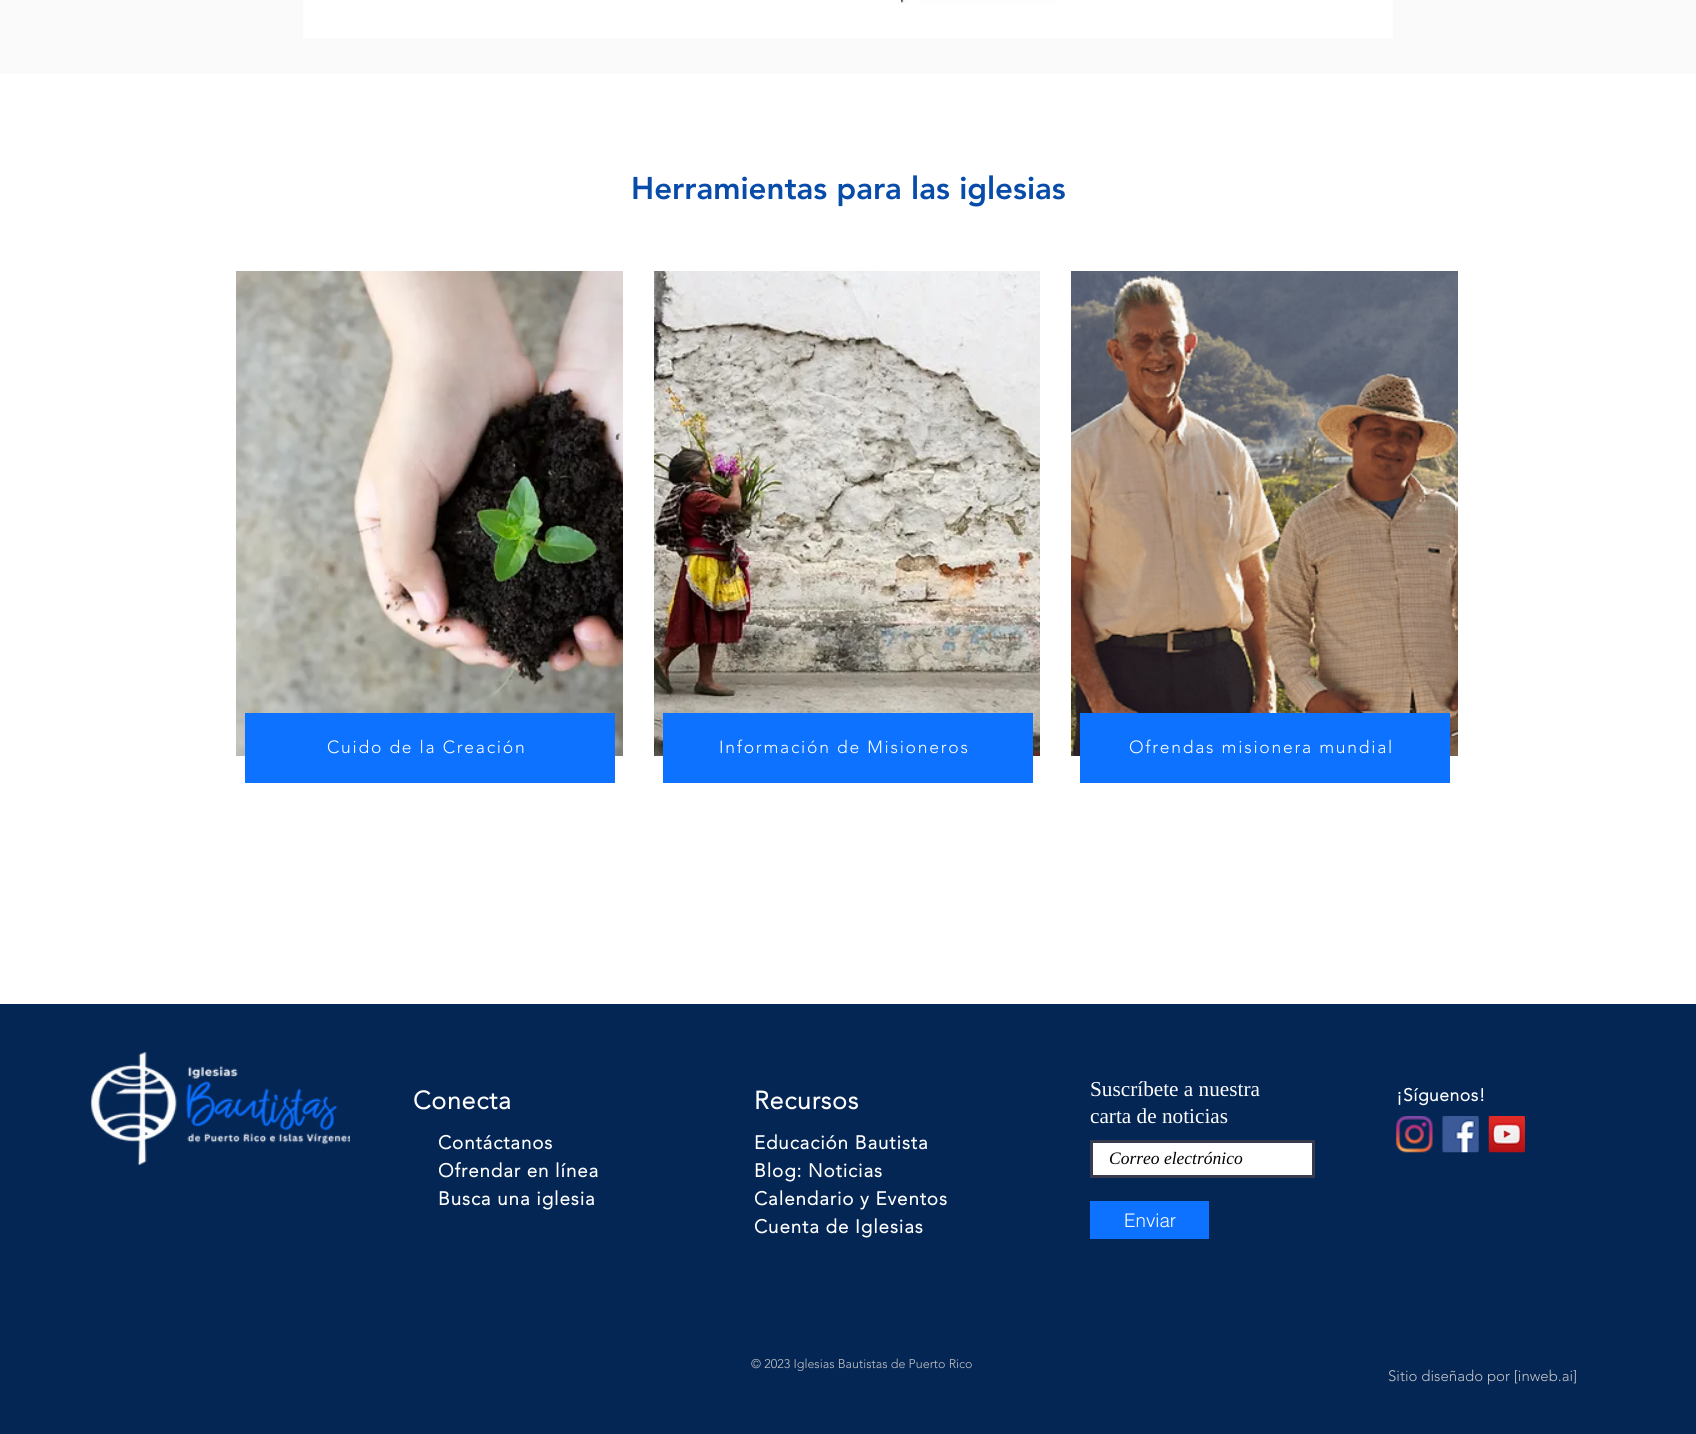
import math
import cairo

surface = cairo.ImageSurface(cairo.FORMAT_RGB24, 1696, 1434)
c = cairo.Context(surface)
options = cairo.FontOptions()
options.set_hint_metrics(cairo.HINT_METRICS_OFF)
options.set_hint_style(cairo.HINT_STYLE_NONE)
c.set_font_options(options)
c.set_miter_limit(4)
def C(code):
 c.set_source_rgb(*(v / 255 for v in bytes.fromhex(code[-6:])))
def F(family, size, italic, bold):
 c.select_font_face(family, cairo.FONT_SLANT_ITALIC if italic else cairo.FONT_SLANT_NORMAL, cairo.FONT_WEIGHT_BOLD if bold else cairo.FONT_WEIGHT_NORMAL)
 c.set_font_size(size)
def T(x, y, s):
 c.move_to(x, y)
 c.show_text(s)
def L(x, y, s, letter, word):
 c.move_to(x, y)
 for ch in s:
  c.show_text(ch)
  c.rel_move_to(letter + word * (ch == ' '), 0)
def R(x, y, w, h):
 c.rectangle(x, y, w, h)
 c.fill()
def I(path, x, y, w, h):
 c.save()
 c.set_source_surface(cairo.ImageSurface.create_from_png(path), x, y)
 c.rectangle(x, y, w, h)
 c.fill()
 c.restore()
C('ffffff')
c.paint()
C('fafafa')
R(0,0,1696,74)
I('1.png',303,0,1090,38)
F('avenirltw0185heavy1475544 Black',31.25,0,0)
C('084caa')
T(631,199,'Herramientas para las iglesias')
I('2.png',236,271,387,485)
C('0c72ff')
R(245,713,370,70)
F('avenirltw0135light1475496 Light',17.5,0,0)
C('ffffff')
L(327,753,'Cuido de la Creación',1.75,0)
I('3.png',654,271,386,485)
C('0c72ff')
R(663,713,370,70)
C('ffffff')
L(719,753,'Información de Misioneros',1.75,0)
I('4.png',1071,271,387,485)
C('0c72ff')
R(1080,713,370,70)
C('ffffff')
L(1129,753,'Ofrendas misionera mundial',1.75,0)
C('042655')
R(0,1004,1696,430)
I('5.png',90,1051,260,114)
F('avenirltw0135light1475496',25,0,1)
C('ffffff')
L(413,1109,'Conecta',.75,0)
F('avenirltw0135light1475496',18.75,0,1)
L(438,1149,'Contáctanos',.9,0)
L(438,1177,'Ofrendar en línea',.9,0)
L(438,1205,'Busca una iglesia',.9,0)
F('avenirltw0135light1475496',25,0,1)
L(754,1109,'Recursos',.75,0)
F('avenirltw0135light1475496',18.75,0,1)
L(754,1149,'Educación Bautista',.9,0)
L(754,1177,'Blog: Noticias',.9,0)
L(754,1205,'Calendario y Eventos',.9,0)
L(754,1233,'Cuenta de Iglesias',.9,0)
F('avenirltw0135light1475496 Light',12.5,0,0)
C('c6c6c6')
T(751,1368,'© 2023 Iglesias Bautistas de Puerto Rico')
F('Liberation Serif',21.25,0,0)
C('ffffff')
T(1090,1096,'Suscríbete a nuestra')
T(1090,1123,'carta de noticias')
c.rectangle(1091.5,1141.5,222,35)
c.fill_preserve()
C('373b4d')
c.set_line_width(3)
c.stroke()
F('Liberation Serif',17.5,1,0)
C('000000')
T(1109,1164,'Correo electrónico')
C('0c72ff')
R(1090,1201,119,38)
F('helvetica Light',18.75,0,0)
C('ffffff')
T(1124,1227,'Enviar')
F('avenirltw0135light1475496',17.5,0,1)
L(1396,1101,'¡Síguenos!',.5,0)
I('6.png',1396,1116,37,37)
I('7.png',1442,1116,37,37)
I('8.png',1488,1116,37,37)
F('avenirltw0135light1475496 Light',15,0,0)
C('c6c6c6')
T(1388,1381,'Sitio diseñado por [inweb.ai]')
surface.write_to_png('o.png')
